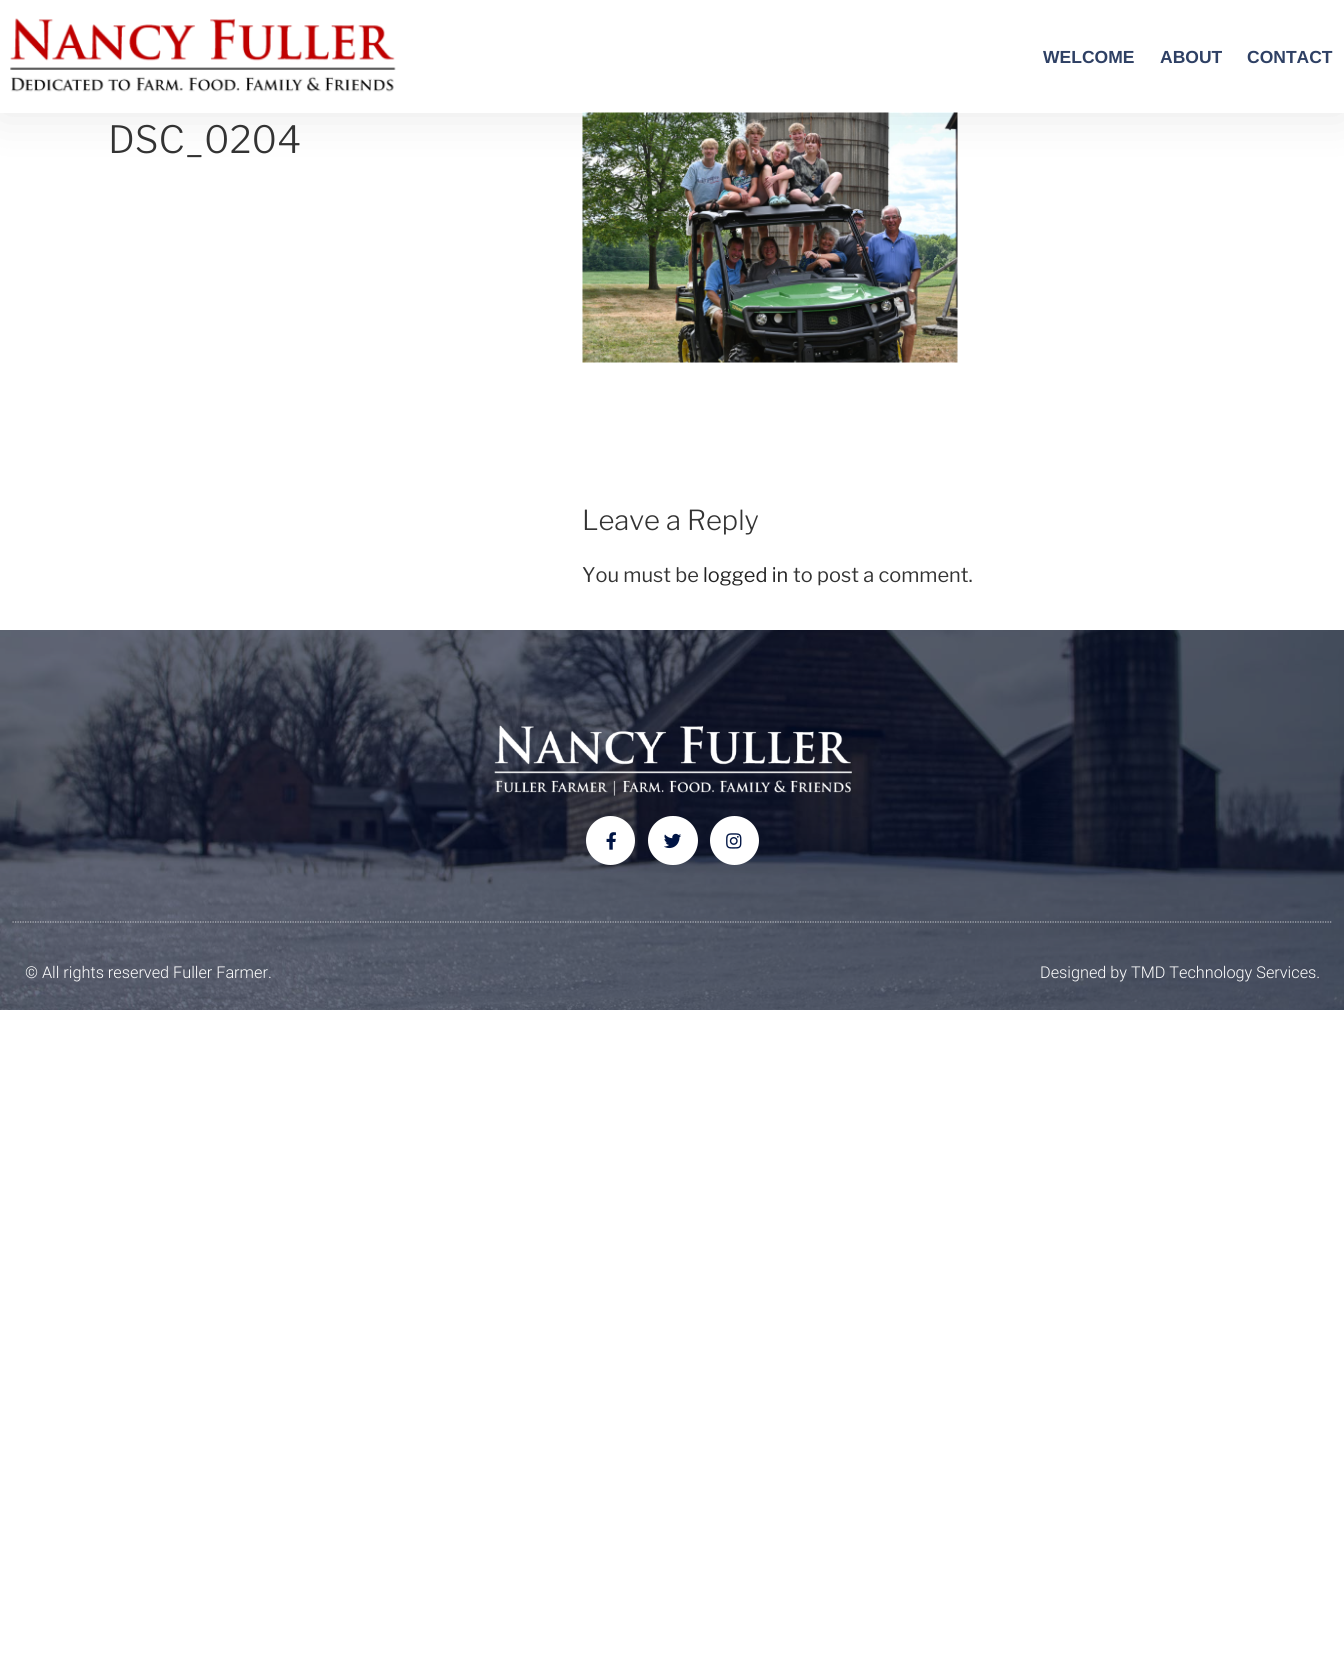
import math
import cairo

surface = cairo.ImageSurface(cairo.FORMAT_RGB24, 1344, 1676)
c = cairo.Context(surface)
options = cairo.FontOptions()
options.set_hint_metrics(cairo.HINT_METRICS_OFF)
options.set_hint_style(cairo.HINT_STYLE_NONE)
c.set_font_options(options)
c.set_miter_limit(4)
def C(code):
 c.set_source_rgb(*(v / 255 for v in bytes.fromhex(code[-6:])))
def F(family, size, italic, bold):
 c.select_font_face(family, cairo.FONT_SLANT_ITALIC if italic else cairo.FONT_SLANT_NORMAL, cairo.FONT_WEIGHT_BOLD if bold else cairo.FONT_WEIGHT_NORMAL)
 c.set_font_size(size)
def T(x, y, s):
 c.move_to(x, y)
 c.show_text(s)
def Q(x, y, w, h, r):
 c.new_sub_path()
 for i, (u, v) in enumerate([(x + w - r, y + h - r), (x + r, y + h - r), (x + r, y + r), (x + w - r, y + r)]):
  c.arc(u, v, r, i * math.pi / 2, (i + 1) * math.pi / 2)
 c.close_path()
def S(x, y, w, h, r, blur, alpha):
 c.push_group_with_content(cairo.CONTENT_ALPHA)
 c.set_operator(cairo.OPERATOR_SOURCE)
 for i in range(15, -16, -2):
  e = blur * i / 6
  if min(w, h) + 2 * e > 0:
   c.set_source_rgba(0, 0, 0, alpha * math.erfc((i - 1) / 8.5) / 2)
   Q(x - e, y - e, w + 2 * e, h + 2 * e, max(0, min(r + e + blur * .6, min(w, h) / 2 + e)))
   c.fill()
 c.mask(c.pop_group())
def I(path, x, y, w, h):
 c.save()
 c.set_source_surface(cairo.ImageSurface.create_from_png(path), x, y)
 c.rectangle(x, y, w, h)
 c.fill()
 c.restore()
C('ffffff')
c.paint()
I('2.png',582,112,376,251)
c.save()
c.set_fill_rule(cairo.FILL_RULE_EVEN_ODD)
c.new_path()
c.move_to(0,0)
c.line_to(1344,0)
c.line_to(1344,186)
c.line_to(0,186)
c.close_path()
c.move_to(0,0)
c.line_to(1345,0)
c.line_to(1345,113)
c.line_to(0,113)
c.close_path()
c.clip()
C('000000')
S(0,0,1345,113,0,24,.1)
c.restore()
I('1.png',10,18,386,74)
F('Liberation Sans',17.5,0,1)
C('2e4064')
T(1043,63,'WELCOME')
T(1160,63,'ABOUT')
T(1247,63,'CONTACT')
F('Libre Franklin Thin',37.5,0,0)
C('333333')
T(108,153,'DSC_0204')
F('Libre Franklin Thin',27.5,0,0)
T(582,530,'Leave a Reply')
F('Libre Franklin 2 Thin',20,0,0)
T(582,582,'You must be')
C('222222')
T(703,582,'logged in')
C('333333')
T(793,582,'to post a comment.')
I('3.png',0,630,1344,380)
I('4.png',494,725,358,71)
C('ffffff')
c.arc(610.5,840.5,24.5,0,2 * math.pi)
c.fill()
I('5.png',606,832,10,18)
Q(648,816,50,49,24.5)
c.fill()
I('6.png',664,833,18,16)
c.arc(734.5,840.5,24.5,0,2 * math.pi)
c.fill()
I('7.png',726,833,16,16)
c.new_path()
c.move_to(12.5,922)
c.line_to(1332.5,922)
c.set_source_rgba(1,1,1,0.59)
c.set_line_width(1.2)
c.set_dash([1.25,1.25])
c.stroke()
F('Roboto Light',16.25,0,0)
C('ffffff')
T(25,978,'© All rights reserved Fuller Farmer.')
T(1040,978,'Designed by TMD Technology Services.')
surface.write_to_png('o.png')
